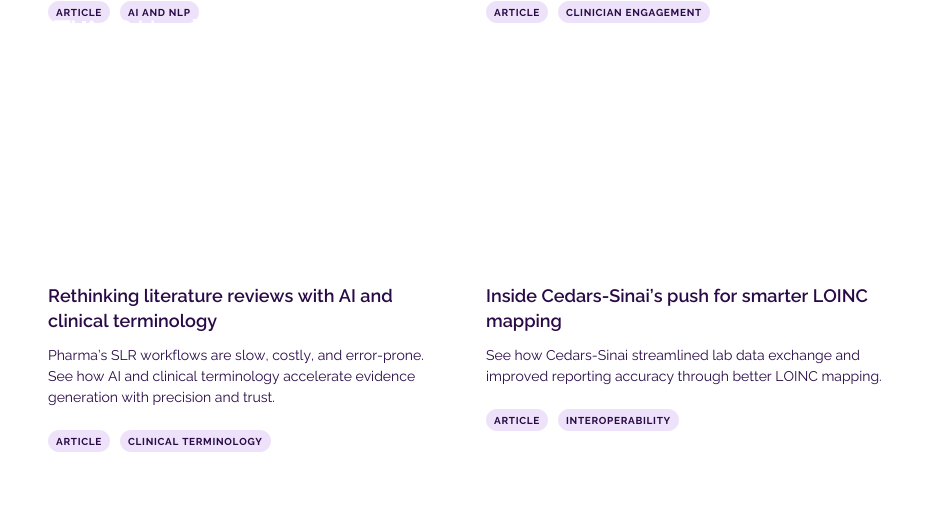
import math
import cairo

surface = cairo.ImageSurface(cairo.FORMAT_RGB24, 936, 531)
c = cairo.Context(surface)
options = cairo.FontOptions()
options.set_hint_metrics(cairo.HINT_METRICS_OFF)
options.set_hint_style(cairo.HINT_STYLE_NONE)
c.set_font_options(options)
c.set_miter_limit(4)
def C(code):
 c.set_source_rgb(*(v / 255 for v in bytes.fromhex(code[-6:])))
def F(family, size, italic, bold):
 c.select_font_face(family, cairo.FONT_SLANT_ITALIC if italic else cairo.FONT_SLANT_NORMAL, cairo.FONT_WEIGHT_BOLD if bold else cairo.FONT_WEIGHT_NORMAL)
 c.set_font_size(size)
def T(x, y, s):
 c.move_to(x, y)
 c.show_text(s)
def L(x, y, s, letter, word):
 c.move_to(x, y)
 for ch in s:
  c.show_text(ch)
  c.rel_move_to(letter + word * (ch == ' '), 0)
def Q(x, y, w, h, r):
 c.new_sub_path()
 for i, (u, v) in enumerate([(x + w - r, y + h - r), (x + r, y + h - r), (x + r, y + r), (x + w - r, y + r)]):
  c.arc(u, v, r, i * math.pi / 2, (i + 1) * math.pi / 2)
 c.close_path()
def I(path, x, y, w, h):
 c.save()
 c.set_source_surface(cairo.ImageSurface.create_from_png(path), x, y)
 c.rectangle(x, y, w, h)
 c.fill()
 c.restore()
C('ffffff')
c.paint()
C('ede2f9')
Q(48,1,62,22,11)
c.fill()
F('Raleway',10,0,1)
C('290a46')
L(56,16,'ARTICLE',.7,0)
C('ede2f9')
Q(120,1,79,22,11)
c.fill()
C('290a46')
L(128,16,'AI AND NLP',.7,0)
C('ede2f9')
Q(486,1,62,22,11)
c.fill()
C('290a46')
L(494,16,'ARTICLE',.7,0)
C('ede2f9')
Q(558,1,152,22,11)
c.fill()
C('290a46')
L(566,16,'CLINICIAN ENGAGEMENT',.7,0)
F('Raleway SemiBold',18,0,0)
T(48,302,'Rethinking literature reviews with AI and')
T(48,327,'clinical terminology')
F('Raleway',14,0,0)
T(48,360,'Pharma’s SLR workflows are slow, costly, and error-prone.')
T(48,381,'See how AI and clinical terminology accelerate evidence')
T(48,402,'generation with precision and trust.')
C('ede2f9')
Q(48,430,62,22,11)
c.fill()
F('Raleway',10,0,1)
C('290a46')
L(56,445,'ARTICLE',.7,0)
C('ede2f9')
Q(120,430,151,22,11)
c.fill()
C('290a46')
L(128,445,'CLINICAL TERMINOLOGY',.7,0)
F('Raleway SemiBold',18,0,0)
T(486,302,'Inside Cedars-Sinai’s push for smarter LOINC')
T(486,327,'mapping')
F('Raleway',14,0,0)
T(486,360,'See how Cedars-Sinai streamlined lab data exchange and')
T(486,381,'improved reporting accuracy through better LOINC mapping.')
C('ede2f9')
Q(486,409,62,22,11)
c.fill()
F('Raleway',10,0,1)
C('290a46')
L(494,424,'ARTICLE',.7,0)
C('ede2f9')
Q(558,409,121,22,11)
c.fill()
C('290a46')
L(566,424,'INTEROPERABILITY',.7,0)
I('1.png',53,19,143,4)
surface.write_to_png('o.png')
